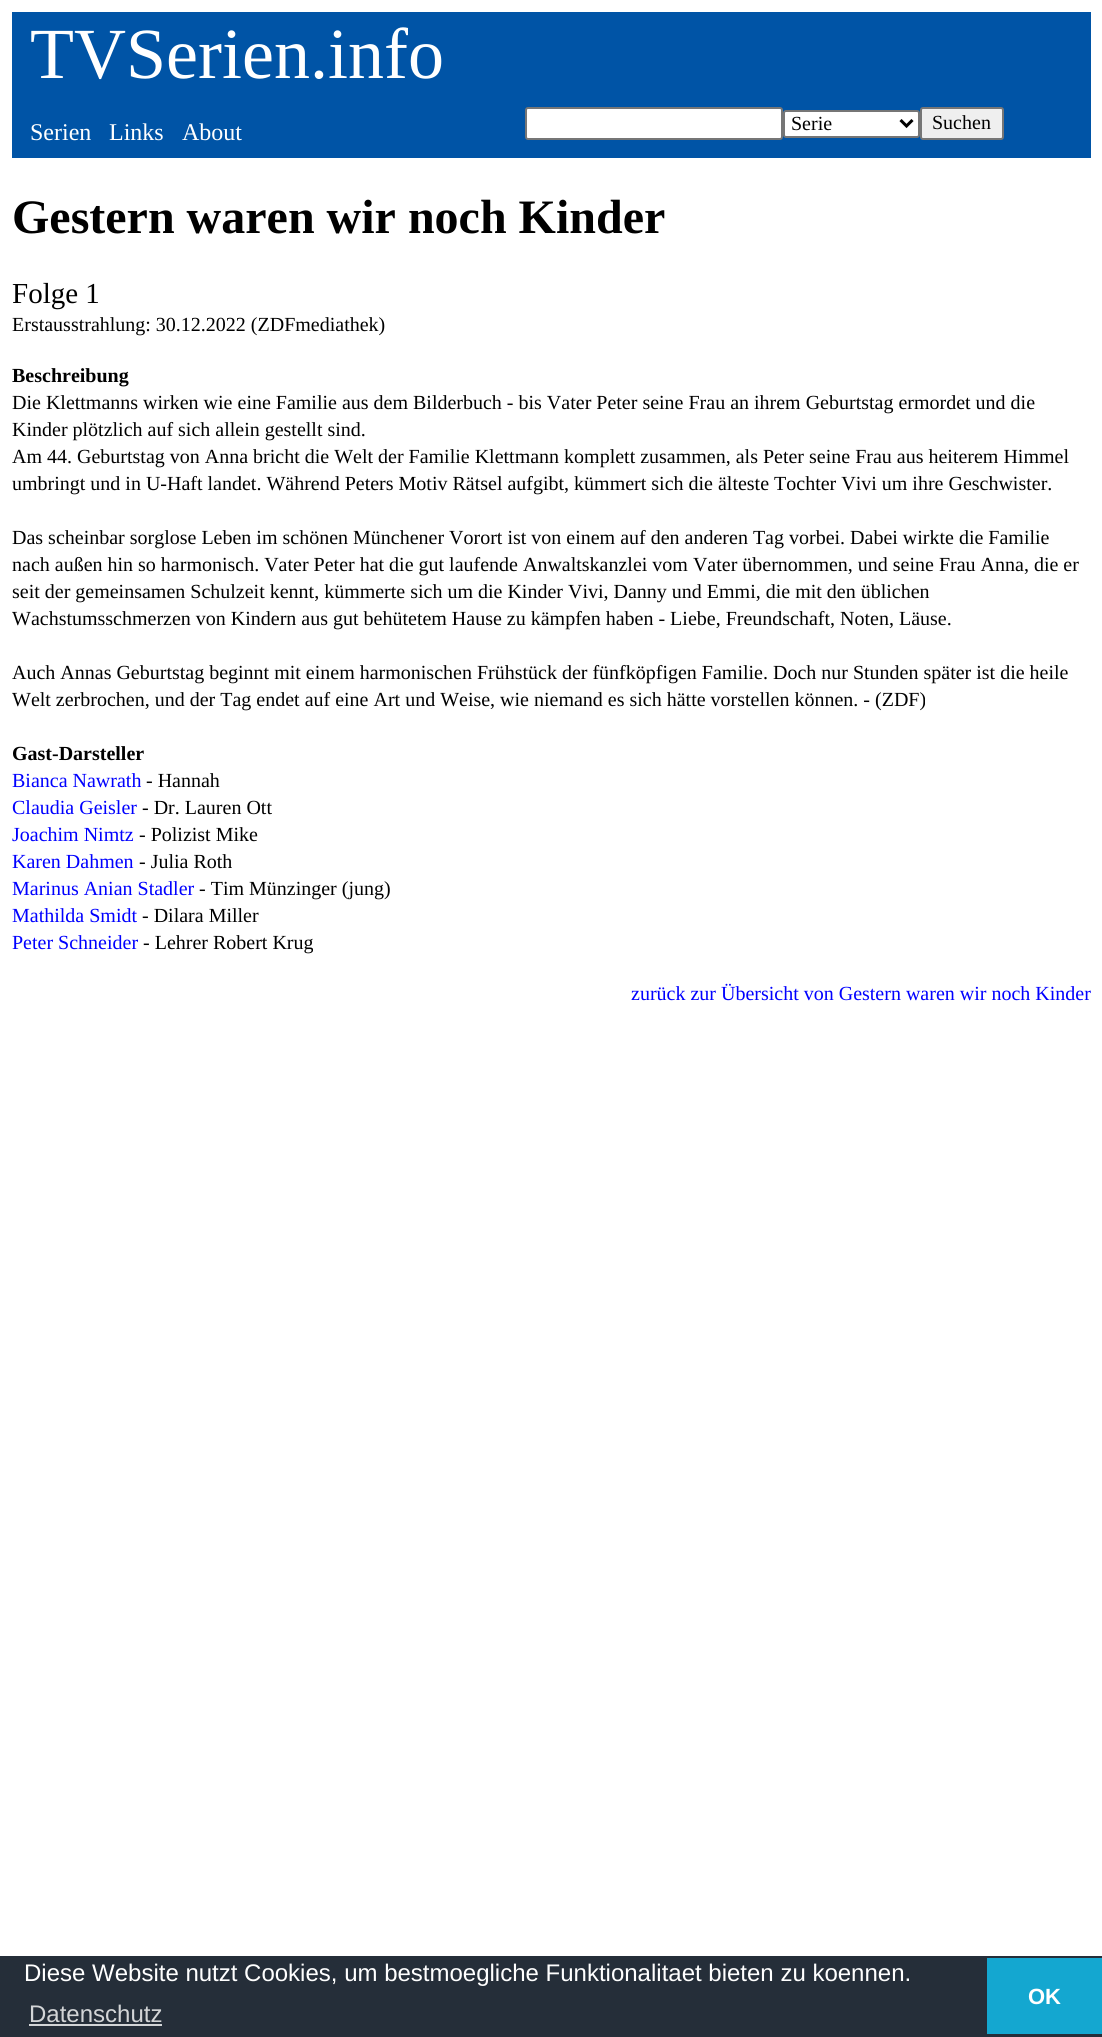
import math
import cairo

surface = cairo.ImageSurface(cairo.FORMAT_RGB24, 1102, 2037)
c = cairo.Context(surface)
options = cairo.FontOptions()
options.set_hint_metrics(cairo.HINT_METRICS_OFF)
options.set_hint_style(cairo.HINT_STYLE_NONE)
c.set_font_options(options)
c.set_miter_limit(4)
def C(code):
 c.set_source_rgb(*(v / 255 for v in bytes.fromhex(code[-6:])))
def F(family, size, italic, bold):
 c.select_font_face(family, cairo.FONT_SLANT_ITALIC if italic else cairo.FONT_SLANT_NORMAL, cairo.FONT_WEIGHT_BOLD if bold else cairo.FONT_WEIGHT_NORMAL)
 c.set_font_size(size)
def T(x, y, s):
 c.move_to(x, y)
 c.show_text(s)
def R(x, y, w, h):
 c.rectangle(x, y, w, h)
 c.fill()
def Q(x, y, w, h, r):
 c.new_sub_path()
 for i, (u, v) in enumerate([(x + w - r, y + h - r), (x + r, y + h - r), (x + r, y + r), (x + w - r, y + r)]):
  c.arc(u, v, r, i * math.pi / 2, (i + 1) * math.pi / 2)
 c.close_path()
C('ffffff')
c.paint()
C('0054a6')
R(12,12,1079,146)
F('Liberation Serif',72,0,0)
C('ffffff')
T(30,78,'TVSerien.info')
F('Liberation Serif',24,0,0)
T(30,140,'Serien')
T(109,140,'Links')
T(182,140,'About')
Q(526,108,256,31,2)
c.fill_preserve()
C('767676')
c.stroke()
C('ffffff')
Q(784,111,135,26,2)
c.fill_preserve()
C('767676')
c.stroke()
c.new_path()
c.move_to(900.5,120)
c.line_to(906.5,126)
c.line_to(912.5,120)
C('000000')
c.set_line_width(3)
c.stroke()
F('Liberation Serif',20,0,0)
T(791,130,'Serie')
C('efefef')
Q(921,108,82,31,2)
c.fill_preserve()
C('767676')
c.set_line_width(2)
c.stroke()
C('000000')
T(932,129,'Suchen')
F('Liberation Serif',48,0,1)
T(12,233,'Gestern waren wir noch Kinder')
F('Liberation Serif',29,0,0)
T(12,303,'Folge 1')
F('Liberation Serif',20,0,0)
T(12,331,'Erstausstrahlung: 30.12.2022 (ZDFmediathek)')
F('Liberation Serif',20,0,1)
T(12,382,'Beschreibung')
F('Liberation Serif',20,0,0)
T(12,409,'Die Klettmanns wirken wie eine Familie aus dem Bilderbuch - bis Vater Peter seine Frau an ihrem Geburtstag ermordet und die')
T(12,436,'Kinder plötzlich auf sich allein gestellt sind.')
T(12,463,'Am 44. Geburtstag von Anna bricht die Welt der Familie Klettmann komplett zusammen, als Peter seine Frau aus heiterem Himmel')
T(12,490,'umbringt und in U-Haft landet. Während Peters Motiv Rätsel aufgibt, kümmert sich die älteste Tochter Vivi um ihre Geschwister.')
T(12,544,'Das scheinbar sorglose Leben im schönen Münchener Vorort ist von einem auf den anderen Tag vorbei. Dabei wirkte die Familie')
T(12,571,'nach außen hin so harmonisch. Vater Peter hat die gut laufende Anwaltskanzlei vom Vater übernommen, und seine Frau Anna, die er')
T(12,598,'seit der gemeinsamen Schulzeit kennt, kümmerte sich um die Kinder Vivi, Danny und Emmi, die mit den üblichen')
T(12,625,'Wachstumsschmerzen von Kindern aus gut behütetem Hause zu kämpfen haben - Liebe, Freundschaft, Noten, Läuse.')
T(12,679,'Auch Annas Geburtstag beginnt mit einem harmonischen Frühstück der fünfköpfigen Familie. Doch nur Stunden später ist die heile')
T(12,706,'Welt zerbrochen, und der Tag endet auf eine Art und Weise, wie niemand es sich hätte vorstellen können. - (ZDF)')
F('Liberation Serif',20,0,1)
T(12,760,'Gast-Darsteller')
F('Liberation Serif',20,0,0)
C('0000ff')
T(12,787,'Bianca Nawrath')
C('000000')
T(146,787,'- Hannah')
C('0000ff')
T(12,814,'Claudia Geisler')
C('000000')
T(142,814,'- Dr. Lauren Ott')
C('0000ff')
T(12,841,'Joachim Nimtz')
C('000000')
T(139,841,'- Polizist Mike')
C('0000ff')
T(12,868,'Karen Dahmen')
C('000000')
T(139,868,'- Julia Roth')
C('0000ff')
T(12,895,'Marinus Anian Stadler')
C('000000')
T(199,895,'- Tim Münzinger (jung)')
C('0000ff')
T(12,922,'Mathilda Smidt')
C('000000')
T(142,922,'- Dilara Miller')
C('0000ff')
T(12,949,'Peter Schneider')
C('000000')
T(143,949,'- Lehrer Robert Krug')
C('0000ff')
T(631,1000,'zurück zur Übersicht von Gestern waren wir noch Kinder')
C('252e39')
R(0,1956,1102,81)
F('Liberation Sans',24,0,0)
C('ffffff')
T(24,1981,'Diese Website nutzt Cookies, um bestmoegliche Funktionalitaet bieten zu koennen.')
C('d3d5d7')
T(29,2022,'Datenschutz')
R(29,2024,133,2)
C('14a7d0')
R(987,1958,115,76)
F('Liberation Sans',22,0,1)
C('ffffff')
T(1028,2004,'OK')
surface.write_to_png('o.png')
